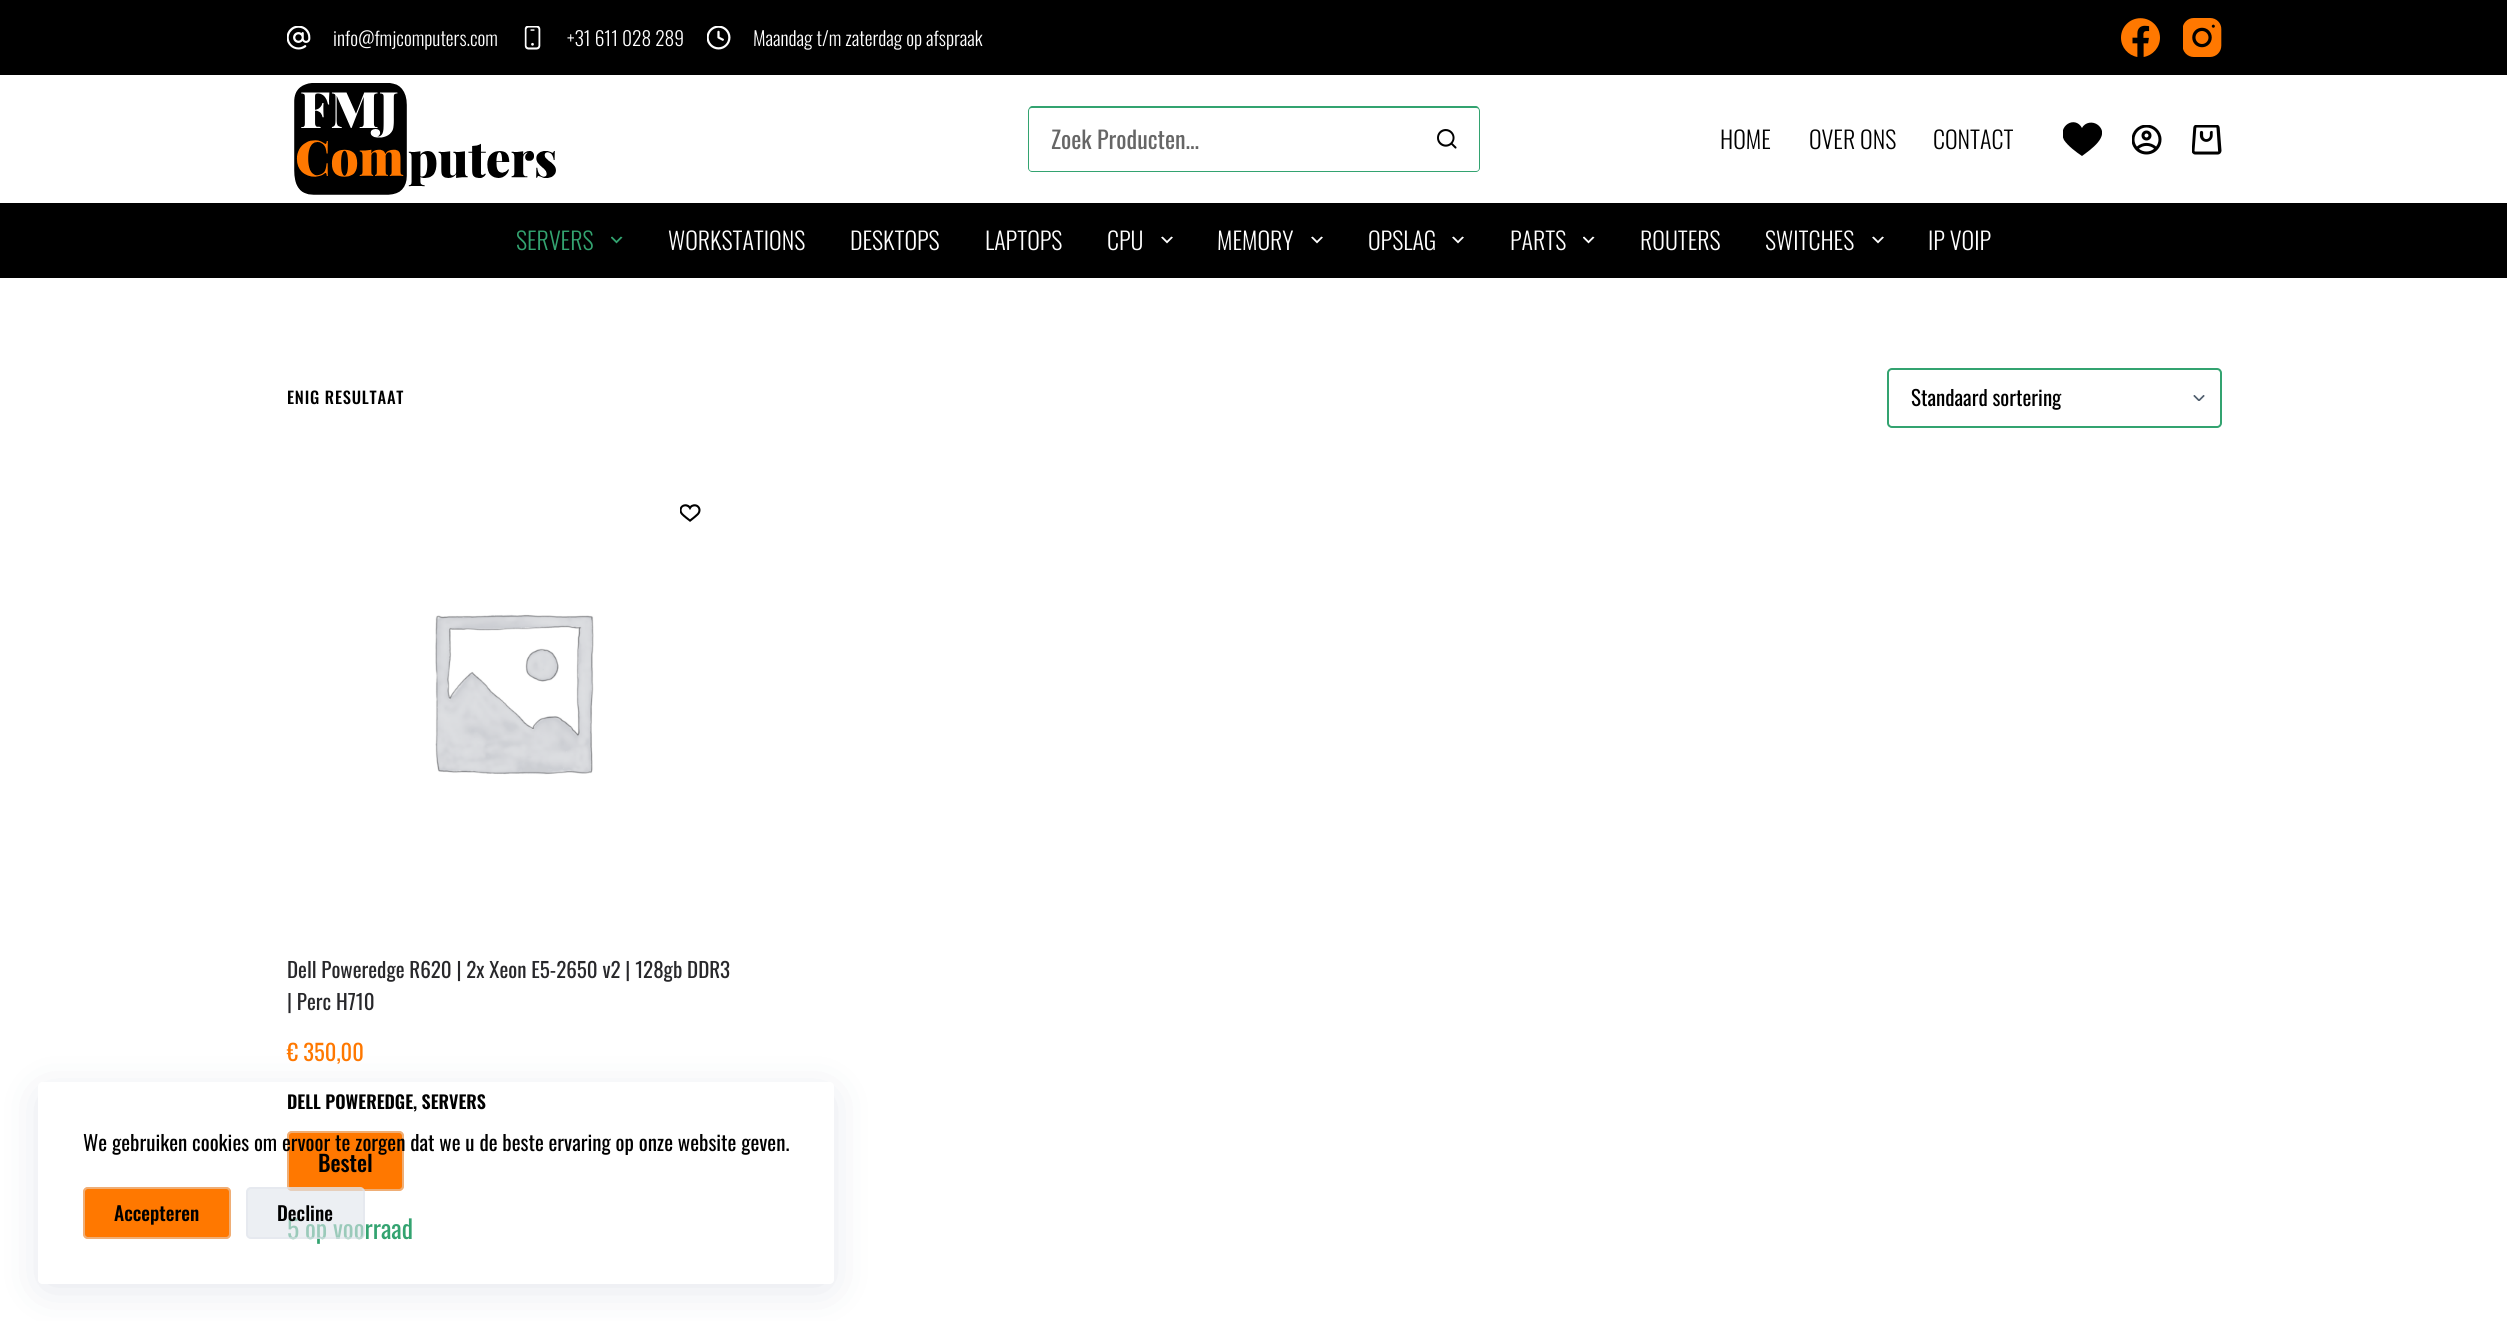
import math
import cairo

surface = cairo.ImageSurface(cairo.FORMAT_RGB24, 2507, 1321)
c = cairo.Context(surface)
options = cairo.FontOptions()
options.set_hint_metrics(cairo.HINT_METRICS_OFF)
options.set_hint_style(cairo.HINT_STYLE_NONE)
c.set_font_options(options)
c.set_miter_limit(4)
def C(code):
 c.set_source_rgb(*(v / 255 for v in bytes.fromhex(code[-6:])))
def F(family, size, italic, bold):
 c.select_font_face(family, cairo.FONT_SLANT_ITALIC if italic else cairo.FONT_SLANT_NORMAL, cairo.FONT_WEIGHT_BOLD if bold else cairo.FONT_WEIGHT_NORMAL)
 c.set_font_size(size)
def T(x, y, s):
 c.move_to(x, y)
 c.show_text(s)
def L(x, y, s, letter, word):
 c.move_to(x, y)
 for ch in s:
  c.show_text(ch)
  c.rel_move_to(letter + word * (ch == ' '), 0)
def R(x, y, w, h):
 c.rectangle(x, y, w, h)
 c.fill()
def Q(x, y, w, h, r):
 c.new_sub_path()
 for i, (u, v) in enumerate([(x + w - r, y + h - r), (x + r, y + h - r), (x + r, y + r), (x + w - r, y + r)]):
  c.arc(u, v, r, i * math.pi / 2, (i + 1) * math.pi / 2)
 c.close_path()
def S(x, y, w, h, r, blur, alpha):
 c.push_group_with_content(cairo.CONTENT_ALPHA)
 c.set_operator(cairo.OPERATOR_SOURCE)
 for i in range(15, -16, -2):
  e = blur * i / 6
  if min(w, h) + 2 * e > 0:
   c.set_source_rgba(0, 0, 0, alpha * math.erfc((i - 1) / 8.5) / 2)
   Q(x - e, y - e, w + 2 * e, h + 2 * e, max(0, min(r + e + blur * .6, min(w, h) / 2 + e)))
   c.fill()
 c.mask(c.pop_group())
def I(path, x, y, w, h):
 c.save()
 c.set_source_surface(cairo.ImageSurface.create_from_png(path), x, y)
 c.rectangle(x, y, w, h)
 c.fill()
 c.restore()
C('ffffff')
c.paint()
C('000000')
R(0,0,2507,75)
I('1.png',287,26,24,24)
F('Oswald Light',19.5,0,0)
C('ffffff')
T(333,46,'info@fmjcomputers.com')
I('2.png',524,26,17,24)
T(567,46,'+31 611 028 289')
I('3.png',707,26,24,24)
T(753,46,'Maandag t/m zaterdag op afspraak')
I('4.png',2121,18,39,39)
I('5.png',2183,18,39,39)
I('6.png',294,83,262,112)
C('33a370')
c.set_fill_rule(cairo.FILL_RULE_EVEN_ODD)
c.new_path()
c.move_to(1032,106)
c.line_to(1414,106)
c.line_to(1414,172)
c.line_to(1032,172)
c.curve_to(1030,172,1028,170,1028,168)
c.line_to(1028,111)
c.curve_to(1028,109,1030,106,1032,106)
c.close_path()
c.move_to(1032,108)
c.line_to(1414,108)
c.line_to(1414,171)
c.line_to(1032,171)
c.curve_to(1030,171,1029,170,1029,168)
c.line_to(1029,111)
c.curve_to(1029,109,1030,108,1032,108)
c.close_path()
c.fill()
F('Oswald',24,0,0)
C('666666')
T(1051,149,'Zoek Producten...')
C('33a370')
c.new_path()
c.move_to(1414,106)
c.line_to(1476,106)
c.curve_to(1478,106,1480,109,1480,111)
c.line_to(1480,168)
c.curve_to(1480,170,1478,172,1476,172)
c.line_to(1414,172)
c.close_path()
c.move_to(1414,108)
c.line_to(1476,108)
c.curve_to(1478,108,1479,109,1479,111)
c.line_to(1479,168)
c.curve_to(1479,170,1478,171,1476,171)
c.line_to(1414,171)
c.close_path()
c.fill()
I('7.png',1437,129,20,20)
F('Oswald Light',24,0,0)
C('000000')
T(1720,149,'HOME')
T(1809,149,'OVER ONS')
T(1933,149,'CONTACT')
c.save()
c.set_fill_rule(cairo.FILL_RULE_WINDING)
c.rectangle(2063,120,39,39)
c.clip()
c.new_path()
c.move_to(2098,125)
c.curve_to(2093,121,2085,122,2082,128)
c.curve_to(2075,115,2057,126,2064,140)
c.curve_to(2068,146,2076,152,2082,156)
c.curve_to(2090,150,2111,136,2098,125)
c.close_path()
c.fill()
c.restore()
I('8.png',2132,125,30,30)
I('9.png',2192,125,30,30)
R(0,203,2507,75)
C('33a370')
T(516,250,'SERVERS')
I('10.png',611,236,12,8)
C('ffffff')
T(668,250,'WORKSTATIONS')
T(850,250,'DESKTOPS')
T(985,250,'LAPTOPS')
T(1107,250,'CPU')
I('11.png',1161,236,12,8)
T(1217,250,'MEMORY')
I('11.png',1311,236,12,8)
T(1368,250,'OPSLAG')
I('11.png',1452,236,12,8)
T(1510,250,'PARTS')
I('12.png',1583,236,12,8)
T(1640,250,'ROUTERS')
T(1765,250,'SWITCHES')
I('11.png',1872,236,12,8)
T(1928,250,'IP VOIP')
F('Oswald Medium',16.5,0,0)
C('000000')
L(287,404,'ENIG RESULTAAT',.8,0)
I('13.png',2193,395,12,6)
Q(1888,369,333,58,4)
C('33a370')
c.stroke()
F('Oswald',21,0,0)
C('000000')
T(1911,406,'Standaard sortering')
I('14.png',680,504,21,18)
I('15.png',435,614,159,161)
C('28282b')
T(287,978,'Dell Poweredge R620 | 2x Xeon E5-2650 v2 | 128gb DDR3')
T(287,1010,'| Perc H710')
F('Oswald',22.5,0,0)
C('ff7800')
T(287,1061,'€ 350,00')
F('Oswald SemiBold',18,0,0)
C('000000')
T(287,1109,'DELL POWEREDGE, SERVERS')
C('ff7800')
Q(287,1131,117,60,5)
c.fill()
Q(288,1132,115,58,4)
c.set_source_rgba(0.878,0.898,0.922,0.5)
c.stroke()
F('Oswald Medium',22.5,0,0)
C('000000')
T(318,1172,'Bestel')
F('Oswald',25.5,0,0)
C('33a370')
T(287,1239,'5 op voorraad')
c.save()
c.new_path()
c.move_to(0,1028)
c.line_to(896,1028)
c.line_to(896,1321)
c.line_to(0,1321)
c.close_path()
c.move_to(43,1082)
c.line_to(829,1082)
c.curve_to(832,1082,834,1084,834,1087)
c.line_to(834,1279)
c.curve_to(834,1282,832,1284,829,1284)
c.line_to(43,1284)
c.curve_to(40,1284,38,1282,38,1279)
c.line_to(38,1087)
c.curve_to(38,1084,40,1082,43,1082)
c.close_path()
c.clip()
C('223865')
S(45,1097,782,187,0,22.5,.15)
c.restore()
F('Oswald',21,0,0)
C('000000')
T(83,1151,'We gebruiken cookies om ervoor te zorgen dat we u de beste ervaring op onze website geven.')
C('ff7800')
Q(83,1187,148,52,5)
c.fill()
Q(84,1188,146,50,4)
c.set_source_rgba(0.878,0.898,0.922,0.5)
c.stroke()
F('Oswald Medium',19.5,0,0)
C('000000')
T(114,1221,'Accepteren')
c.set_source_rgba(0.878,0.898,0.922,0.6)
Q(246,1187,119,52,5)
c.fill()
Q(247,1188,117,50,4)
c.set_source_rgba(0.878,0.898,0.922,0.5)
c.stroke()
C('000000')
T(277,1221,'Decline')
surface.write_to_png('o.png')
